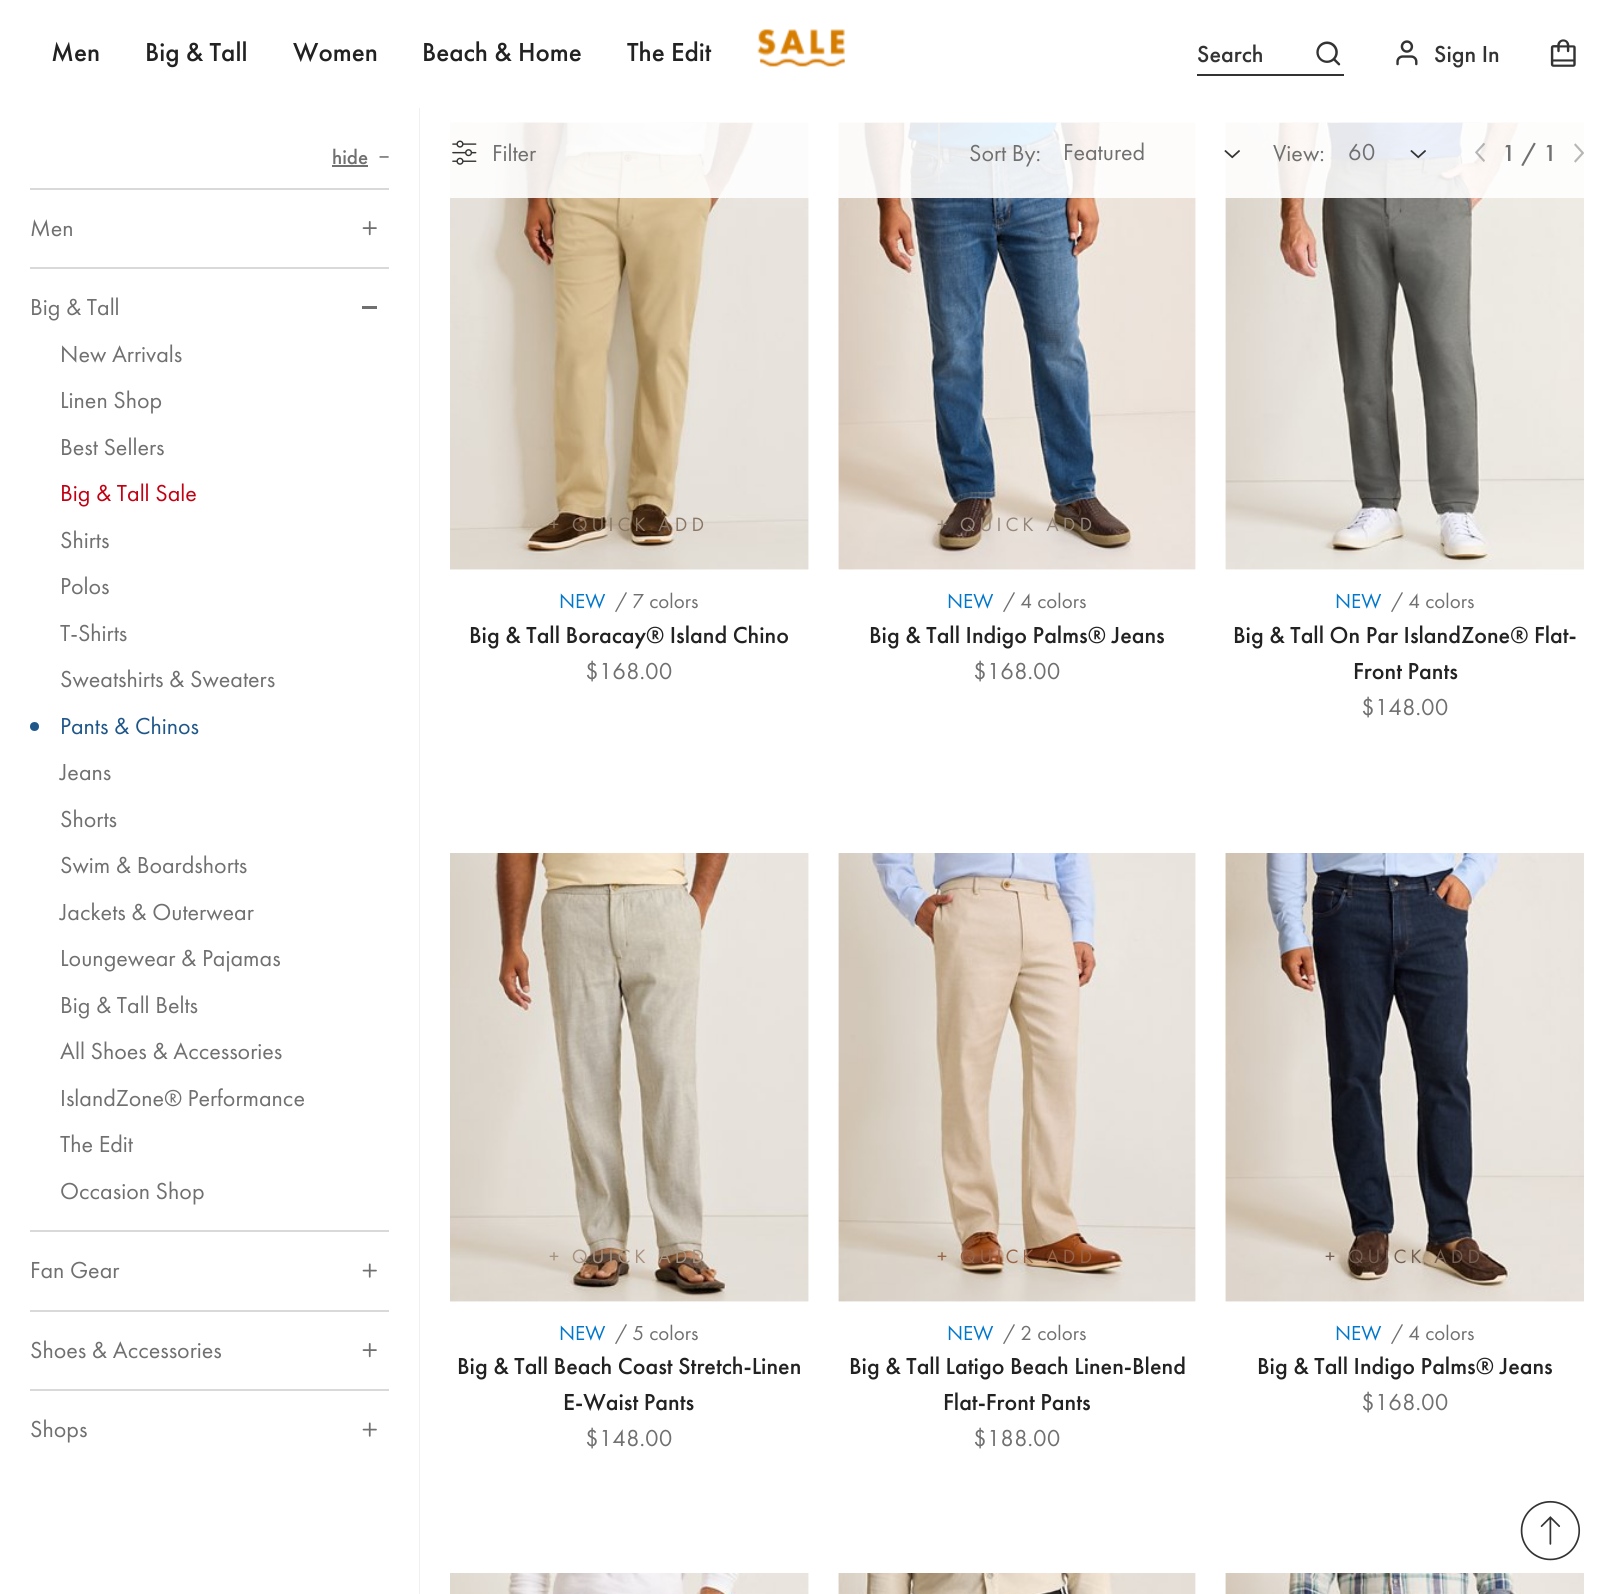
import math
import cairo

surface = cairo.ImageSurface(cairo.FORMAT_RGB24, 1614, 1594)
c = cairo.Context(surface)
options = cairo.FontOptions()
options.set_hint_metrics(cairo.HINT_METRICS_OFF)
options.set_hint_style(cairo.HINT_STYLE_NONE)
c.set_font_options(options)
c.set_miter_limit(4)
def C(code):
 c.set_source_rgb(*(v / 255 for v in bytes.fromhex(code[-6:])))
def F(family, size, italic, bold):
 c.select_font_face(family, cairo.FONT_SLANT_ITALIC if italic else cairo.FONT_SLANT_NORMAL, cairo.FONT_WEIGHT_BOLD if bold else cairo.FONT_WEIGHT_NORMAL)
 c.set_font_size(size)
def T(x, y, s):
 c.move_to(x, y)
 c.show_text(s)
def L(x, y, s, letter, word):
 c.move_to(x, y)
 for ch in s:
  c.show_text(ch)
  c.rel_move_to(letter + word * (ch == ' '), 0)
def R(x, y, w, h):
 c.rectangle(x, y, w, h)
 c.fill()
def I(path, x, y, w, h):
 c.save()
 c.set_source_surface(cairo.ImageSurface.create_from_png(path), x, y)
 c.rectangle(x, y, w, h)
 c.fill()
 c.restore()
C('ffffff')
c.paint()
F('Futura PT Medium',27,0,0)
C('222222')
T(51,61,'Men')
T(145,61,'Big & Tall')
T(293,61,'Women')
T(422,61,'Beach & Home')
T(627,61,'The Edit')
I('1.png',757,29,88,38)
C('333333')
R(1197,74,147,2)
F('Futura PT Medium',24,0,0)
T(1197,62,'Search')
I('2.png',1316,41,25,25)
I('3.png',1396,40,22,26)
T(1434,62,'Sign In')
I('4.png',1550,39,26,28)
C('f0f0f0')
R(419,108,1,1486)
F('Futura PT Medium',21,0,0)
C('707070')
T(332,164,'hide')
R(332,165,36,2)
F('Lato Medium',21,0,0)
T(378,164,'−')
C('d9d9d9')
R(30,188,359,2)
F('Futura PT',24,0,0)
C('707070')
T(30,236,'Men')
I('5.png',362,221,15,15)
C('d9d9d9')
R(30,267,359,2)
C('707070')
T(30,315,'Big & Tall')
R(362,306,15,3)
T(60,362,'New Arrivals')
T(60,408,'Linen Shop')
T(60,455,'Best Sellers')
C('c10012')
T(60,501,'Big & Tall Sale')
C('707070')
T(60,548,'Shirts')
T(60,594,'Polos')
T(60,641,'T-Shirts')
T(60,687,'Sweatshirts & Sweaters')
C('1f5689')
c.new_path()
c.arc(34.5,726.5,4.5,0,2 * math.pi)
c.fill()
T(60,734,'Pants & Chinos')
C('707070')
T(60,780,'Jeans')
T(60,827,'Shorts')
T(60,873,'Swim & Boardshorts')
T(60,920,'Jackets & Outerwear')
T(60,966,'Loungewear & Pajamas')
T(60,1013,'Big & Tall Belts')
T(60,1059,'All Shoes & Accessories')
T(60,1106,'IslandZone® Performance')
T(60,1152,'The Edit')
T(60,1199,'Occasion Shop')
C('d9d9d9')
R(30,1230,359,2)
C('707070')
T(30,1278,'Fan Gear')
I('6.png',362,1263,15,15)
C('d9d9d9')
R(30,1310,359,2)
C('707070')
T(30,1358,'Shoes & Accessories')
I('5.png',362,1343,15,15)
C('d9d9d9')
R(30,1389,359,2)
C('707070')
T(30,1437,'Shops')
I('6.png',362,1422,15,15)
I('12.png',450,122,359,448)
I('13.png',450,122,359,448)
I('14.png',838,122,358,448)
I('15.png',838,122,358,448)
I('16.png',1225,122,359,448)
I('17.png',1225,122,359,448)
c.set_source_rgba(1,1,1,0.9)
R(450,122,1134,76)
I('7.png',452,140,25,25)
C('707070')
T(492,161,'Filter')
C('f0f0f0')
R(938,123,2,60)
C('707070')
T(969,161,'Sort By:')
T(1063,160,'Featured')
I('8.png',1224,150,16,9)
T(1273,161,'View:')
T(1348,160,'60')
I('9.png',1410,150,16,9)
I('10.png',1475,142,10,20)
F('Futura PT Medium',24,0,0)
T(1502,161,'1 / 1')
I('11.png',1574,143,10,20)
F('Futura PT',20,0,0)
C('897664')
L(549,531,'+ QUICK ADD',4,0)
F('Futura PT',21,0,0)
C('0077cc')
T(559,608,'NEW')
C('707070')
T(615,608,'/ 7 colors')
F('Futura PT Medium',24,0,0)
C('222222')
T(469,643,'Big & Tall Boracay® Island Chino')
F('Futura PT',24,0,0)
C('707070')
T(585,679,'$168.00')
F('Futura PT',20,0,0)
C('95877b')
L(937,531,'+ QUICK ADD',4,0)
F('Futura PT',21,0,0)
C('0077cc')
T(947,608,'NEW')
C('707070')
T(1003,608,'/ 4 colors')
F('Futura PT Medium',24,0,0)
C('222222')
T(869,643,'Big & Tall Indigo Palms® Jeans')
F('Futura PT',24,0,0)
C('707070')
T(973,679,'$168.00')
F('Futura PT',21,0,0)
C('0077cc')
T(1335,608,'NEW')
C('707070')
T(1391,608,'/ 4 colors')
F('Futura PT Medium',24,0,0)
C('222222')
T(1233,643,'Big & Tall On Par IslandZone® Flat-')
T(1353,679,'Front Pants')
F('Futura PT',24,0,0)
C('707070')
T(1361,715,'$148.00')
I('18.png',450,853,359,449)
I('19.png',450,853,359,449)
F('Futura PT',20,0,0)
C('a69280')
L(549,1263,'+ QUICK ADD',4,0)
F('Futura PT',21,0,0)
C('0077cc')
T(559,1340,'NEW')
C('707070')
T(615,1340,'/ 5 colors')
F('Futura PT Medium',24,0,0)
C('222222')
T(457,1374,'Big & Tall Beach Coast Stretch-Linen')
T(563,1410,'E-Waist Pants')
F('Futura PT',24,0,0)
C('707070')
T(585,1446,'$148.00')
I('20.png',838,853,358,449)
I('21.png',838,853,358,449)
F('Futura PT',20,0,0)
C('986346')
L(937,1263,'+ QUICK ADD',4,0)
F('Futura PT',21,0,0)
C('0077cc')
T(947,1340,'NEW')
C('707070')
T(1003,1340,'/ 2 colors')
F('Futura PT Medium',24,0,0)
C('222222')
T(849,1374,'Big & Tall Latigo Beach Linen-Blend')
T(943,1410,'Flat-Front Pants')
F('Futura PT',24,0,0)
C('707070')
T(973,1446,'$188.00')
I('22.png',1225,853,359,449)
I('23.png',1225,853,359,449)
F('Futura PT',20,0,0)
C('735e51')
L(1325,1263,'+ QUICK ADD',4,0)
F('Futura PT',21,0,0)
C('0077cc')
T(1335,1340,'NEW')
C('707070')
T(1391,1340,'/ 4 colors')
F('Futura PT Medium',24,0,0)
C('222222')
T(1257,1374,'Big & Tall Indigo Palms® Jeans')
F('Futura PT',24,0,0)
C('707070')
T(1361,1410,'$168.00')
I('25.png',808,1573,1,21)
I('24.png',450,1573,359,21)
I('26.png',838,1573,358,21)
I('27.png',838,1573,358,21)
I('28.png',1225,1573,359,21)
I('29.png',1225,1573,298,21)
I('30.png',1520,1500,61,61)
surface.write_to_png('o.png')
